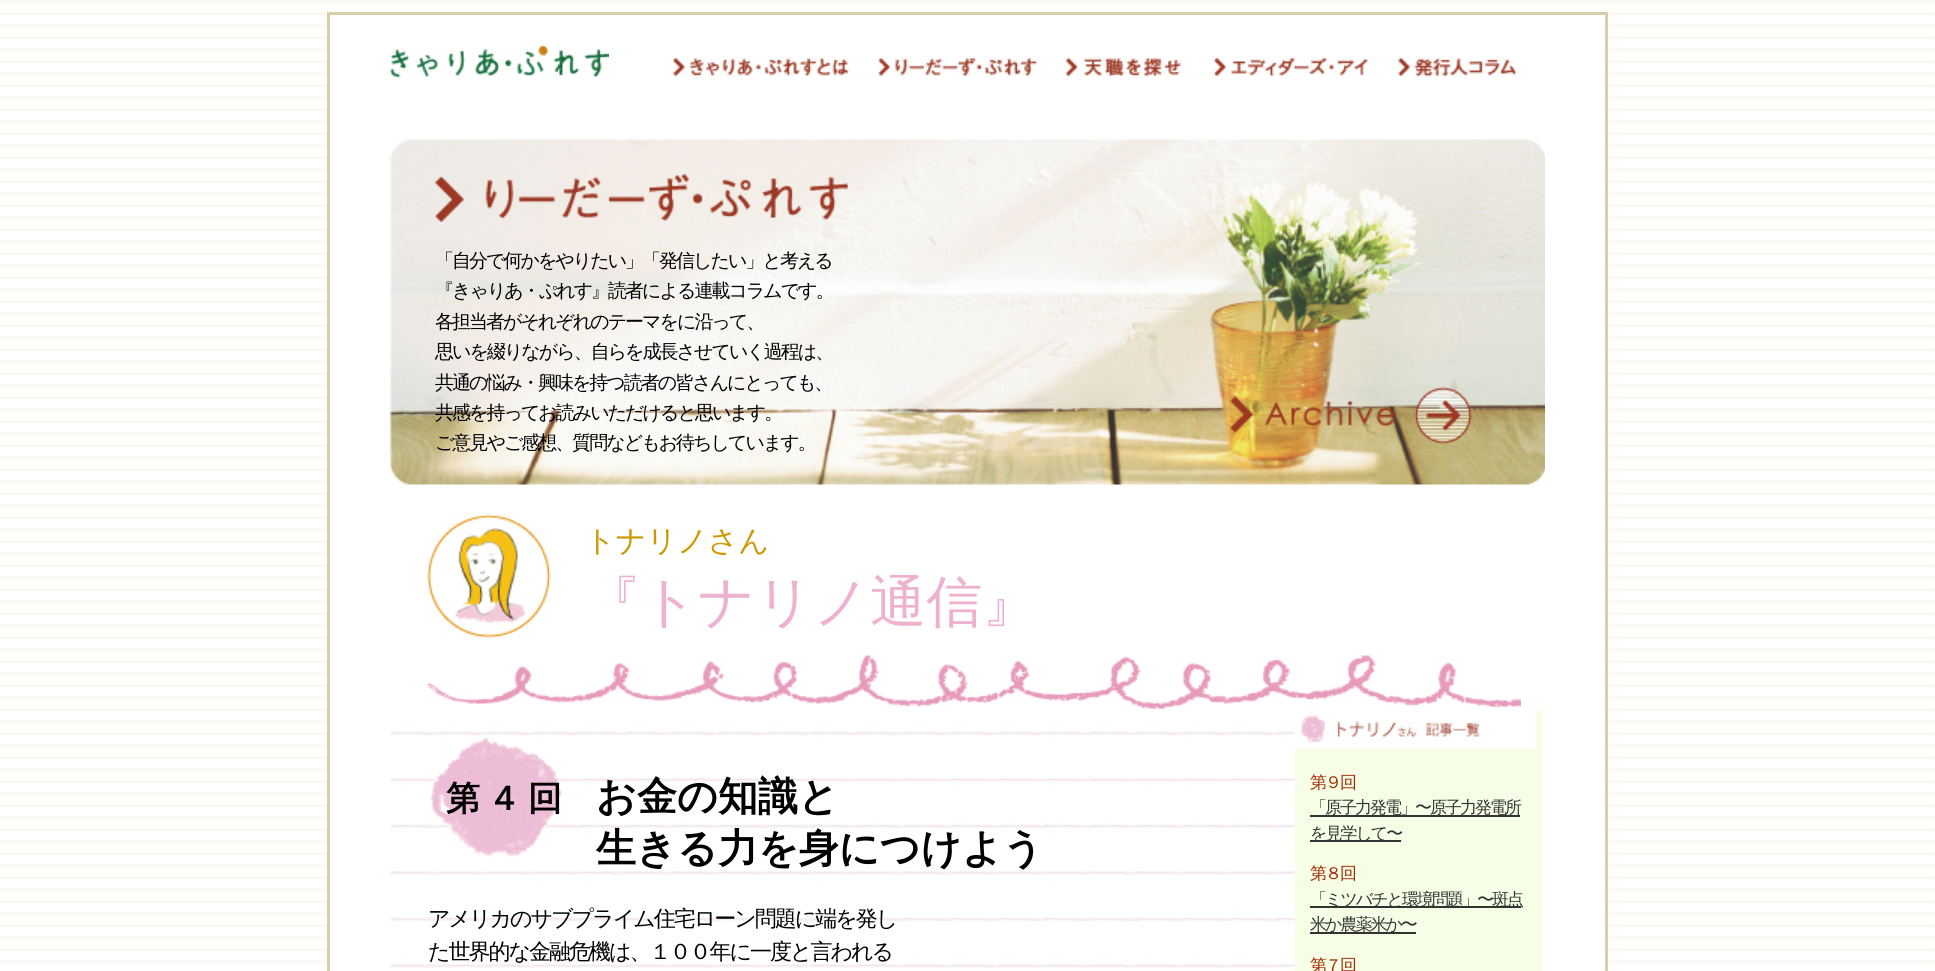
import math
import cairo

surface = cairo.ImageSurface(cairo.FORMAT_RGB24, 1935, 971)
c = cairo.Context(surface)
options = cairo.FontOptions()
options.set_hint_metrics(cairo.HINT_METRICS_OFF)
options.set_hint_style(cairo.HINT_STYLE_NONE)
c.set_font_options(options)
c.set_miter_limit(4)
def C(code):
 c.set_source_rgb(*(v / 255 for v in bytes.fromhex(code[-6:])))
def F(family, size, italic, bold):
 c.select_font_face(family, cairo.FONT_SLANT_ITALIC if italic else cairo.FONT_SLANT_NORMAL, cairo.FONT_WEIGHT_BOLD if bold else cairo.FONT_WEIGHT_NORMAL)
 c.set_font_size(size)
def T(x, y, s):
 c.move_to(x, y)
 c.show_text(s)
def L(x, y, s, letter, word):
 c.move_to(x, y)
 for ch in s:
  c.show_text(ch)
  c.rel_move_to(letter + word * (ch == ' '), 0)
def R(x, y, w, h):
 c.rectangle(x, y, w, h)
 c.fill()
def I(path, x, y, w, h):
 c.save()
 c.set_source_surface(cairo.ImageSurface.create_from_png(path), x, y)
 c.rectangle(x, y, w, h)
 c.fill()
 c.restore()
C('ffffff')
c.paint()
I('1.png',0,0,1935,963)
C('ffffff')
R(330,15,1275,948)
c.rectangle(328.5,13.5,1278,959)
C('d8cea9')
c.set_line_width(3)
c.stroke()
I('2.png',390,45,219,33)
I('3.png',673,57,176,20)
I('4.png',877,57,160,20)
I('5.png',1065,57,116,20)
I('6.png',1213,57,156,20)
I('7.png',1398,57,119,20)
I('8.png',390,139,1155,346)
I('9.png',435,174,413,48)
F('WenQuanYi Zen Hei Medium',19,0,0)
C('000000')
L(435,267,'「自分で何かをやりたい」「発信したい」と考える',-2,0)
L(435,297,'『きゃりあ・ぷれす』読者による連載コラムです。',-2,0)
L(435,328,'各担当者がそれぞれのテーマをに沿って、',-2,0)
L(435,358,'思いを綴りながら、自らを成長させていく過程は、',-2,0)
L(435,389,'共通の悩み・興味を持つ読者の皆さんにとっても、',-2,0)
L(435,419,'共感を持ってお読みいただけると思います。',-2,0)
L(435,449,'ご意見やご感想、質問などもお待ちしています。',-2,0)
I('10.png',1230,387,242,58)
I('11.png',427,514,124,124)
F('WenQuanYi Zen Hei Medium',30,0,0)
C('cc9900')
T(585,551,'トナリノさん')
F('WenQuanYi Zen Hei Medium',56,0,0)
C('eeb1cf')
T(585,621,'『トナリノ通信』')
I('12.png',427,655,1094,55)
I('13.png',390,709,905,259)
I('14.png',430,737,132,120)
F('WenQuanYi Zen Hei',34,0,1)
C('000000')
L(446,810,'第４回',7,0)
F('WenQuanYi Zen Hei',40,0,1)
T(596,810,'お金の知識と')
T(596,862,'生きる力を身につけよう')
F('WenQuanYi Zen Hei Medium',22,0,0)
L(428,926,'アメリカのサブプライム住宅ローン問題に端を発し',-2,0)
L(428,959,'た世界的な金融危機は、１００年に一度と言われる',-2,0)
C('f6ffe6')
R(1295,710,247,261)
I('15.png',1294,710,242,39)
F('WenQuanYi Zen Hei Medium',17,0,0)
C('a32800')
L(1310,788,'第９回',-2,0)
C('333333')
R(1310,815,210,2)
L(1310,813,'「原子力発電」〜原子力発電所',-2,0)
R(1310,840,91,2)
L(1310,839,'を見学して〜',-2,0)
C('a32800')
L(1310,879,'第８回',-2,0)
C('333333')
R(1310,906,211,2)
L(1310,905,'「ミツバチと環境問題」〜斑点',-2,0)
R(1310,932,106,2)
L(1310,930,'米か農薬米か〜',-2,0)
C('a32800')
L(1310,971,'第７回',-2,0)
surface.write_to_png('o.png')
